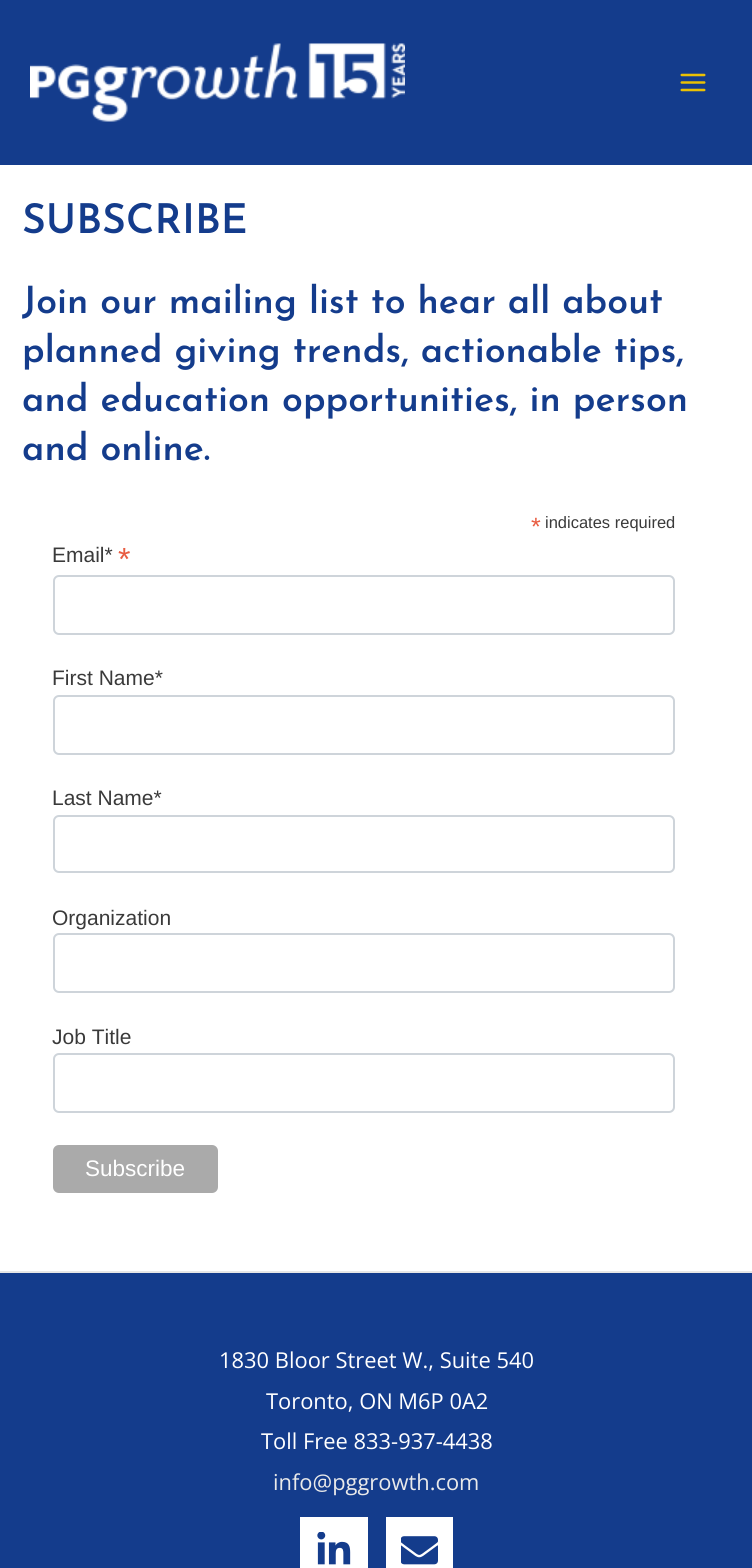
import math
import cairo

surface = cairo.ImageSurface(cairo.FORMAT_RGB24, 752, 1568)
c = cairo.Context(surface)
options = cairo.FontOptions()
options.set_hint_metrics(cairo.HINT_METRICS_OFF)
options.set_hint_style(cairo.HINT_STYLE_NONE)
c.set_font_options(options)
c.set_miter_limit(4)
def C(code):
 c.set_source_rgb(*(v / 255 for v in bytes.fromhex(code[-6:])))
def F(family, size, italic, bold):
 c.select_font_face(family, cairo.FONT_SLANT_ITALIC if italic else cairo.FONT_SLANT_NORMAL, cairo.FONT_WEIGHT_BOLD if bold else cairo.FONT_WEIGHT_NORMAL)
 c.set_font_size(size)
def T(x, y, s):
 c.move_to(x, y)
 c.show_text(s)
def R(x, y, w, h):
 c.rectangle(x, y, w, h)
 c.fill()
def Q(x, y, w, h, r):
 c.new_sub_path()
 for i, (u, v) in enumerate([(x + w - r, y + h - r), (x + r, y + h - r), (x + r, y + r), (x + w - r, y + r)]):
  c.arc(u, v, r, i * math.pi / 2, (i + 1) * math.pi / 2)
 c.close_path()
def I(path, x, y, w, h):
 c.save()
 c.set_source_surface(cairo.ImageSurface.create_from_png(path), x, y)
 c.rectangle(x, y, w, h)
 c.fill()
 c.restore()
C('ffffff')
c.paint()
C('143c8c')
R(0,0,752,165)
I('1.png',30,43,375,79)
I('2.png',680,73,26,19)
F('Josefin Sans Thin',41,0,0)
T(22,233,'SUBSCRIBE')
F('Josefin Sans Thin',37.5,0,0)
T(22,313,'Join our mailing list to hear all about')
T(22,362,'planned giving trends, actionable tips,')
T(22,411,'and education opportunities, in person')
T(22,460,'and online.')
F('Liberation Sans',25,0,0)
C('e85c41')
T(531,535,'*')
F('Liberation Sans',16.5,0,0)
C('3a3a3a')
T(545,528,'indicates required')
F('Liberation Sans',21,0,0)
T(52,562,'Email*')
F('Liberation Sans',32,0,0)
C('e85c41')
T(118,570,'*')
Q(54,576,620,58,5)
C('ced4da')
c.stroke()
F('Liberation Sans',21,0,0)
C('3a3a3a')
T(52,685,'First Name*')
Q(54,696,620,58,5)
C('ced4da')
c.stroke()
C('3a3a3a')
T(52,805,'Last Name*')
Q(54,816,620,56,5)
C('ced4da')
c.stroke()
C('3a3a3a')
T(52,925,'Organization')
Q(54,934,620,58,5)
C('ced4da')
c.stroke()
C('3a3a3a')
T(52,1044,'Job Title')
Q(54,1054,620,58,5)
C('ced4da')
c.stroke()
C('aaaaaa')
Q(53,1145,165,48,6)
c.fill()
F('Liberation Sans',22.5,0,0)
C('ffffff')
T(85,1176,'Subscribe')
C('143c8c')
R(0,1273,752,295)
C('e6e6e6')
R(0,1271,752,2)
F('Open Sans',21.9,0,0)
C('ffffff')
T(219,1368,'1830 Bloor Street W., Suite 540')
T(266,1409,'Toronto, ON M6P 0A2')
T(261,1449,'Toll Free 833-937-4438')
C('eaeaea')
T(273,1490,'info@pggrowth.com')
C('ffffff')
R(300,1517,68,51)
I('3.png',317,1532,34,33)
R(386,1517,67,51)
I('4.png',401,1536,37,29)
surface.write_to_png('o.png')
